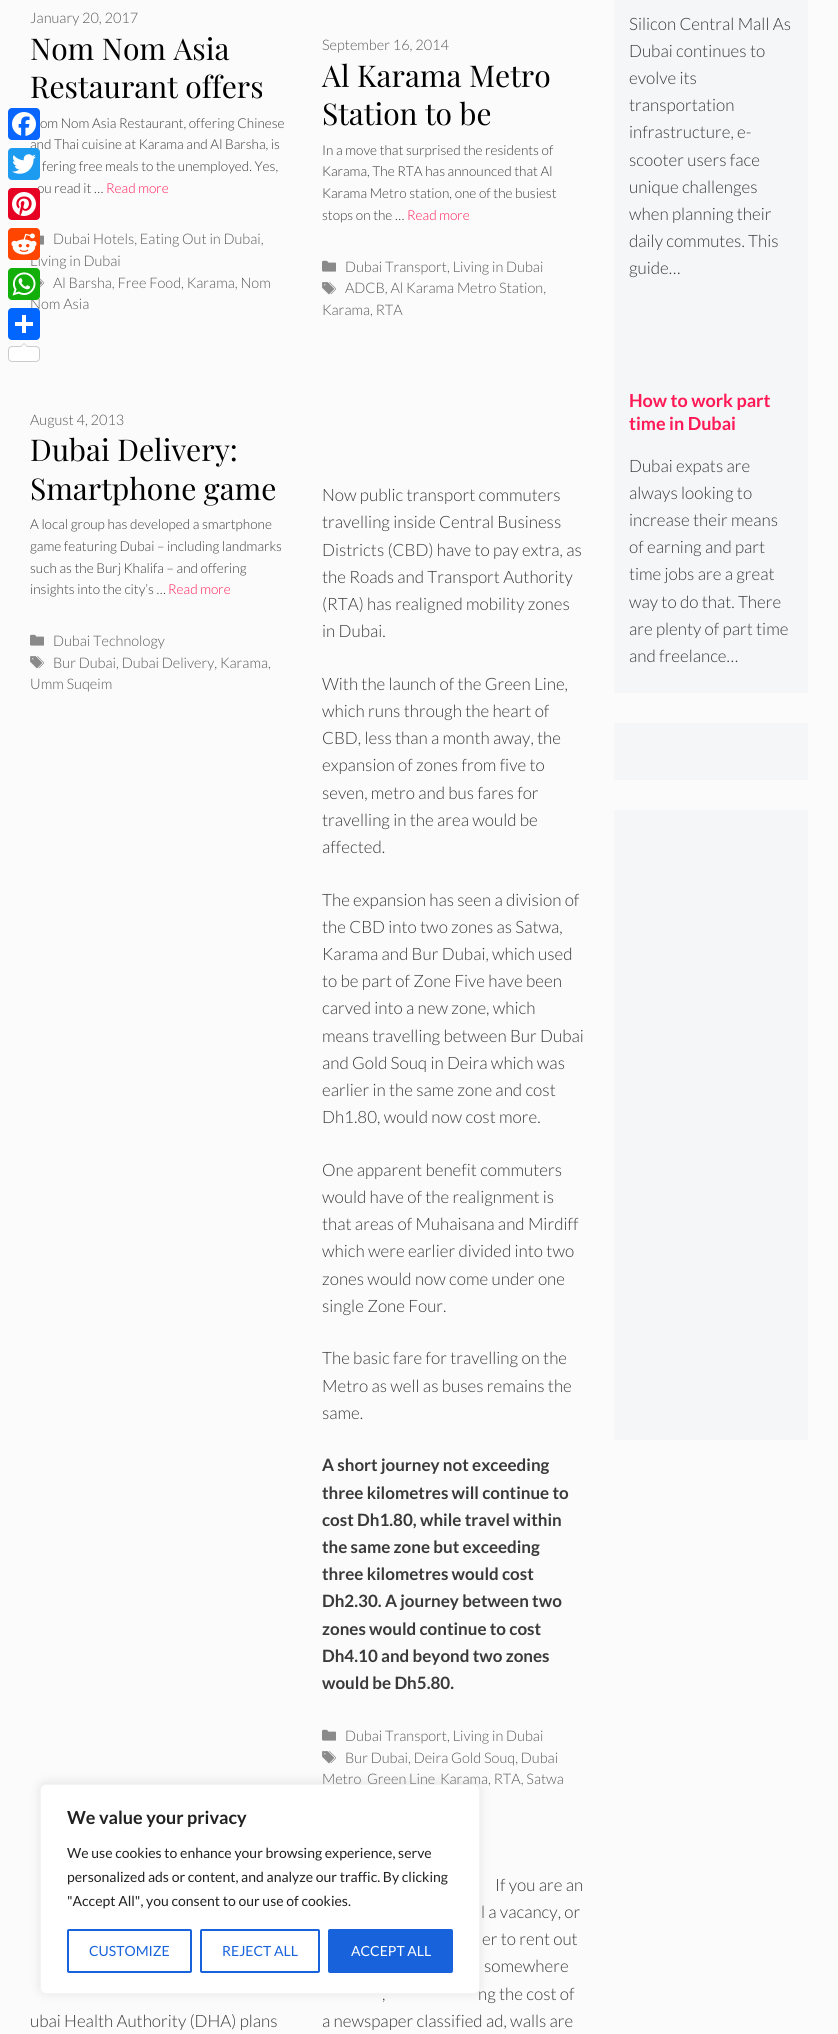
import math
import cairo

surface = cairo.ImageSurface(cairo.FORMAT_RGB24, 838, 2034)
c = cairo.Context(surface)
options = cairo.FontOptions()
options.set_hint_metrics(cairo.HINT_METRICS_OFF)
options.set_hint_style(cairo.HINT_STYLE_NONE)
c.set_font_options(options)
c.set_miter_limit(4)
def C(code):
 c.set_source_rgb(*(v / 255 for v in bytes.fromhex(code[-6:])))
def F(family, size, italic, bold):
 c.select_font_face(family, cairo.FONT_SLANT_ITALIC if italic else cairo.FONT_SLANT_NORMAL, cairo.FONT_WEIGHT_BOLD if bold else cairo.FONT_WEIGHT_NORMAL)
 c.set_font_size(size)
def T(x, y, s):
 c.move_to(x, y)
 c.show_text(s)
def R(x, y, w, h):
 c.rectangle(x, y, w, h)
 c.fill()
def Q(x, y, w, h, r):
 c.new_sub_path()
 for i, (u, v) in enumerate([(x + w - r, y + h - r), (x + r, y + h - r), (x + r, y + r), (x + w - r, y + r)]):
  c.arc(u, v, r, i * math.pi / 2, (i + 1) * math.pi / 2)
 c.close_path()
def S(x, y, w, h, r, blur, alpha):
 c.push_group_with_content(cairo.CONTENT_ALPHA)
 c.set_operator(cairo.OPERATOR_SOURCE)
 for i in range(15, -16, -2):
  e = blur * i / 6
  if min(w, h) + 2 * e > 0:
   c.set_source_rgba(0, 0, 0, alpha * math.erfc((i - 1) / 8.5) / 2)
   Q(x - e, y - e, w + 2 * e, h + 2 * e, max(0, min(r + e + blur * .6, min(w, h) / 2 + e)))
   c.fill()
 c.mask(c.pop_group())
def I(path, x, y, w, h):
 c.save()
 c.set_source_surface(cairo.ImageSurface.create_from_png(path), x, y)
 c.rectangle(x, y, w, h)
 c.fill()
 c.restore()
C('fbfbfb')
c.paint()
F('Lato Light',13.6,0,0)
C('3a3a3a')
T(30,149,'and Thai cuisine at Karama and Al Barsha, is')
C('0866ff')
Q(8,108,32,32,4)
c.fill()
I('1.png',12,112,24,24)
C('1d9bf0')
Q(8,148,32,32,4)
c.fill()
I('2.png',12,154,24,20)
C('3a3a3a')
T(37,193,'ou read it …')
C('e60023')
Q(8,188,32,32,4)
c.fill()
I('3.png',12,192,24,24)
F('Lato Light',14.5,0,0)
C('595959')
T(30,266,'Living in Dubai')
C('ff4500')
Q(8,228,32,32,4)
c.fill()
I('4.png',11,233,26,22)
C('595959')
T(30,309,'Nom Asia')
C('12af0a')
Q(8,268,32,32,4)
c.fill()
I('5.png',12,272,24,24)
C('0166ff')
Q(8,308,32,32,4)
c.fill()
C('ffffff')
R(22,315,4,18)
R(15,322,18,4)
Q(8.5,346.5,31,15,3.5)
c.fill_preserve()
C('cccccc')
c.set_line_width(1)
c.stroke()
c.new_path()
c.move_to(28,347)
c.line_to(20,347)
c.line_to(24,343)
c.close_path()
c.fill()
C('ffffff')
c.new_path()
c.move_to(28,348)
c.line_to(20,348)
c.line_to(24,344)
c.close_path()
c.fill()
C('595959')
T(30,23,'January 20, 2017')
F('Playfair Display',30,0,0)
C('000000')
T(30,60,'Nom Nom Asia')
T(30,98,'Restaurant offers')
F('Lato Light',13.6,0,0)
C('3a3a3a')
T(40,128,'om Nom Asia Restaurant, offering Chinese')
T(42,171,'fering free meals to the unemployed. Yes,')
C('ff1956')
T(106,193,'Read more')
I('6.png',40,235,4,10)
F('Lato Light',14.5,0,0)
C('595959')
T(53,244,'Dubai Hotels, Eating Out in Dubai,')
I('7.png',40,278,4,10)
T(53,288,'Al Barsha, Free Food, Karama, Nom')
T(322,50,'September 16, 2014')
F('Playfair Display',30,0,0)
C('000000')
T(322,87,'Al Karama Metro')
T(322,125,'Station to be')
F('Lato Light',13.6,0,0)
C('3a3a3a')
T(322,155,'In a move that surprised the residents of')
T(322,176,'Karama, The RTA has announced that Al')
T(322,198,'Karama Metro station, one of the busiest')
T(322,220,'stops on the …')
C('ff1956')
T(407,220,'Read more')
I('8.png',322,260,14,12)
F('Lato Light',14.5,0,0)
C('595959')
T(345,272,'Dubai Transport, Living in Dubai')
I('9.png',322,282,14,13)
T(345,293,'ADCB, Al Karama Metro Station,')
T(322,315,'Karama, RTA')
T(30,425,'August 4, 2013')
F('Playfair Display',30,0,0)
C('000000')
T(30,461,'Dubai Delivery:')
T(30,500,'Smartphone game')
F('Lato Light',13.6,0,0)
C('3a3a3a')
T(30,529,'A local group has developed a smartphone')
T(30,551,'game featuring Dubai – including landmarks')
T(30,573,'such as the Burj Khalifa – and offering')
T(30,594,'insights into the city’s …')
C('ff1956')
T(168,594,'Read more')
I('8.png',30,634,14,12)
F('Lato Light',14.5,0,0)
C('595959')
T(53,646,'Dubai Technology')
I('9.png',30,656,14,13)
T(53,668,'Bur Dubai, Dubai Delivery, Karama,')
T(30,689,'Umm Suqeim')
F('Lato Light',17,0,0)
C('3a3a3a')
T(322,501,'Now public transport commuters')
T(322,528,'travelling inside Central Business')
T(322,556,'Districts (CBD) have to pay extra, as')
T(322,583,'the Roads and Transport Authority')
T(322,610,'(RTA) has realigned mobility zones')
T(322,637,'in Dubai.')
T(322,690,'With the launch of the Green Line,')
T(322,717,'which runs through the heart of')
T(322,744,'CBD, less than a month away, the')
T(322,771,'expansion of zones from five to')
T(322,799,'seven, metro and bus fares for')
T(322,826,'travelling in the area would be')
T(322,853,'affected.')
T(322,906,'The expansion has seen a division of')
T(322,933,'the CBD into two zones as Satwa,')
T(322,960,'Karama and Bur Dubai, which used')
T(322,987,'to be part of Zone Five have been')
T(322,1014,'carved into a new zone, which')
T(322,1042,'means travelling between Bur Dubai')
T(322,1069,'and Gold Souq in Deira which was')
T(322,1096,'earlier in the same zone and cost')
T(322,1123,'Dh1.80, would now cost more.')
T(322,1176,'One apparent benefit commuters')
T(322,1203,'would have of the realignment is')
T(322,1230,'that areas of Muhaisana and Mirdiff')
T(322,1257,'which were earlier divided into two')
T(322,1285,'zones would now come under one')
T(322,1312,'single Zone Four.')
T(322,1364,'The basic fare for travelling on the')
T(322,1392,'Metro as well as buses remains the')
T(322,1419,'same.')
F('Lato',17,0,1)
T(322,1471,'A short journey not exceeding')
T(322,1499,'three kilometres will continue to')
T(322,1526,'cost Dh1.80, while travel within')
T(322,1553,'the same zone but exceeding')
T(322,1580,'three kilometres would cost')
T(322,1607,'Dh2.30. A journey between two')
T(322,1635,'zones would continue to cost')
T(322,1662,'Dh4.10 and beyond two zones')
T(322,1689,'would be Dh5.80.')
I('8.png',322,1729,14,12)
F('Lato Light',14.5,0,0)
C('595959')
T(345,1741,'Dubai Transport, Living in Dubai')
I('9.png',322,1751,14,13)
T(345,1763,'Bur Dubai, Deira Gold Souq, Dubai')
T(322,1784,'Metro')
T(367,1784,'Green Line')
T(440,1784,'Karama, RTA, Satwa')
F('Lato Light',17,0,0)
C('3a3a3a')
T(30,2027,'ubai Health Authority (DHA) plans')
T(495,1891,'If you are an')
T(481,1918,'l a vacancy, or')
T(482,1945,'er to rent out')
T(484,1972,'somewhere')
T(382,2000,',')
T(478,2000,'ng the cost of')
T(322,2027,'a newspaper classified ad, walls are')
C('f4f6f7')
R(614,0,194,693)
C('3a3a3a')
T(629,30,'Silicon Central Mall As')
T(629,57,'Dubai continues to')
T(629,84,'evolve its')
T(629,111,'transportation')
T(629,138,'infrastructure, e-')
T(629,166,'scooter users face')
T(629,193,'unique challenges')
T(629,220,'when planning their')
T(629,247,'daily commutes. This')
T(629,274,'guide…')
F('Lato',18,0,1)
C('ff1956')
T(629,407,'How to work part')
T(629,430,'time in Dubai')
F('Lato Light',17,0,0)
C('3a3a3a')
T(629,472,'Dubai expats are')
T(629,499,'always looking to')
T(629,526,'increase their means')
T(629,553,'of earning and part')
T(629,580,'time jobs are a great')
T(629,608,'way to do that. There')
T(629,635,'are plenty of part time')
T(629,662,'and freelance…')
C('f4f6f7')
R(614,723,194,57)
R(614,810,194,630)
C('acabab')
S(40,1783,440,210,6,5,.3)
C('ffffff')
Q(40.5,1784.5,439,209,5.5)
c.fill_preserve()
C('f4f4f4')
c.stroke()
F('Lato',18,0,1)
C('212121')
T(67,1824,'We value your privacy')
F('Lato',14,0,0)
T(67,1858,'We use cookies to enhance your browsing experience, serve')
T(67,1882,'personalized ads or content, and analyze our traffic. By clicking')
T(67,1906,'"Accept All", you consent to our use of cookies.')
Q(68,1930,123,42,1)
C('1863dc')
c.set_line_width(2)
c.stroke()
T(89,1956,'CUSTOMIZE')
Q(201,1930,118,42,1)
c.stroke()
T(222,1956,'REJECT ALL')
Q(329,1930,123,42,1)
c.fill_preserve()
c.stroke()
C('ffffff')
T(351,1956,'ACCEPT ALL')
surface.write_to_png('o.png')
